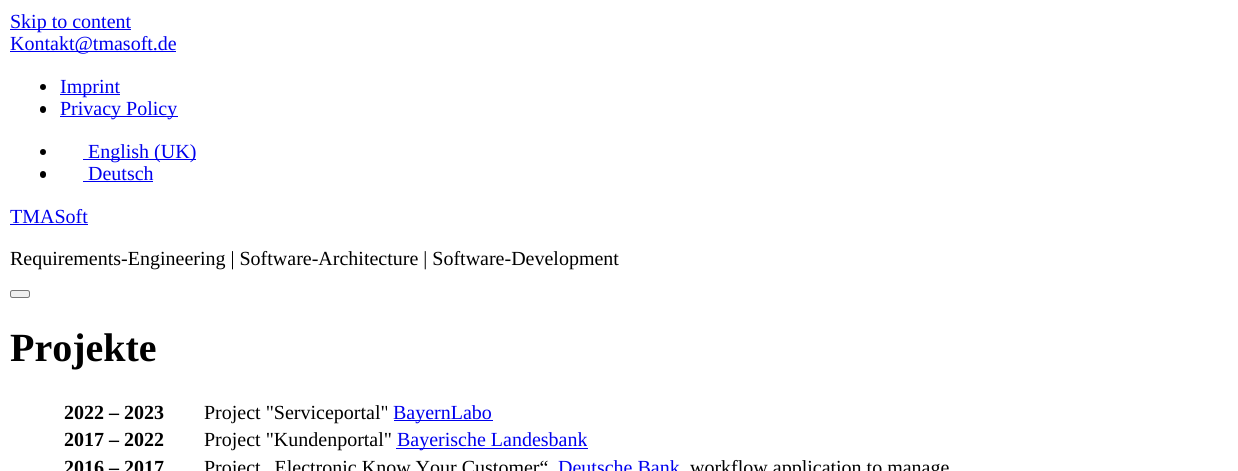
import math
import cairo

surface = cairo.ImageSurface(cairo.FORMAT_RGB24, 1238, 471)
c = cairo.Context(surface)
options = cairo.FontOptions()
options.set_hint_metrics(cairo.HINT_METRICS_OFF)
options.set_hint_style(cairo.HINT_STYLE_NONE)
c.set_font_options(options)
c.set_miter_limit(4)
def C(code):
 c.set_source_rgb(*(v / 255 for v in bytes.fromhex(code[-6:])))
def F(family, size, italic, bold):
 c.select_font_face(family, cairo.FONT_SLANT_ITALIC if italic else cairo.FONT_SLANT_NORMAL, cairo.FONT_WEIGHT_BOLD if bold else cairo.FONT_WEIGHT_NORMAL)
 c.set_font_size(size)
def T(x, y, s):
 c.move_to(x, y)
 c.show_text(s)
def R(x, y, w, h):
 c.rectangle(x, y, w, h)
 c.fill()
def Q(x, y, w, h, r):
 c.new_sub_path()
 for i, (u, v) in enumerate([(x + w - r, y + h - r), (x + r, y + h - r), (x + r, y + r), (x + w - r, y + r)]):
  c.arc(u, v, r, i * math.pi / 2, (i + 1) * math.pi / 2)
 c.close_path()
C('ffffff')
c.paint()
C('0000ee')
R(10,29,121,1)
F('Liberation Serif',20,0,0)
T(10,28,'Skip to content')
R(10,51,166,1)
T(10,50,'Kontakt@tmasoft.de')
C('000000')
c.new_path()
c.arc(43,87,3,0,2 * math.pi)
c.fill()
C('0000ee')
R(60,94,60,1)
T(60,93,'Imprint')
C('000000')
Q(40,106,6,7,3)
c.fill()
C('0000ee')
R(60,116,118,1)
T(60,115,'Privacy Policy')
C('000000')
c.new_path()
c.arc(43,152,3,0,2 * math.pi)
c.fill()
C('0000ee')
R(83,159,113,1)
T(88,158,'English (UK)')
C('000000')
Q(40,171,6,7,3)
c.fill()
C('0000ee')
T(88,180,'Deutsch')
R(83,181,70,1)
T(10,223,'TMASoft')
R(10,224,78,1)
C('000000')
T(10,265,'Requirements-Engineering | Software-Architecture | Software-Development')
C('efefef')
Q(10.5,290.5,19,7,2)
c.fill_preserve()
C('767676')
c.set_line_width(1)
c.stroke()
F('Liberation Serif',40,0,1)
C('000000')
T(10,361,'Projekte')
F('Liberation Serif',20,0,1)
T(64,419,'2022 – 2023')
F('Liberation Serif',20,0,0)
T(204,419,'Project "Serviceportal"')
C('0000ee')
R(394,420,99,1)
T(393,419,'BayernLabo')
F('Liberation Serif',20,0,1)
C('000000')
T(64,446,'2017 – 2022')
F('Liberation Serif',20,0,0)
T(204,446,'Project "Kundenportal"')
C('0000ee')
R(396,448,192,1)
T(397,446,'Bayerische Landesbank')
F('Liberation Serif',20,0,1)
C('000000')
T(64,474,'2016 – 2017')
F('Liberation Serif',20,0,0)
T(204,474,'Project „Electronic Know Your Customer“')
C('0000ee')
T(558,474,'Deutsche Bank')
C('000000')
T(690,474,'workflow application to manage')
surface.write_to_png('o.png')
